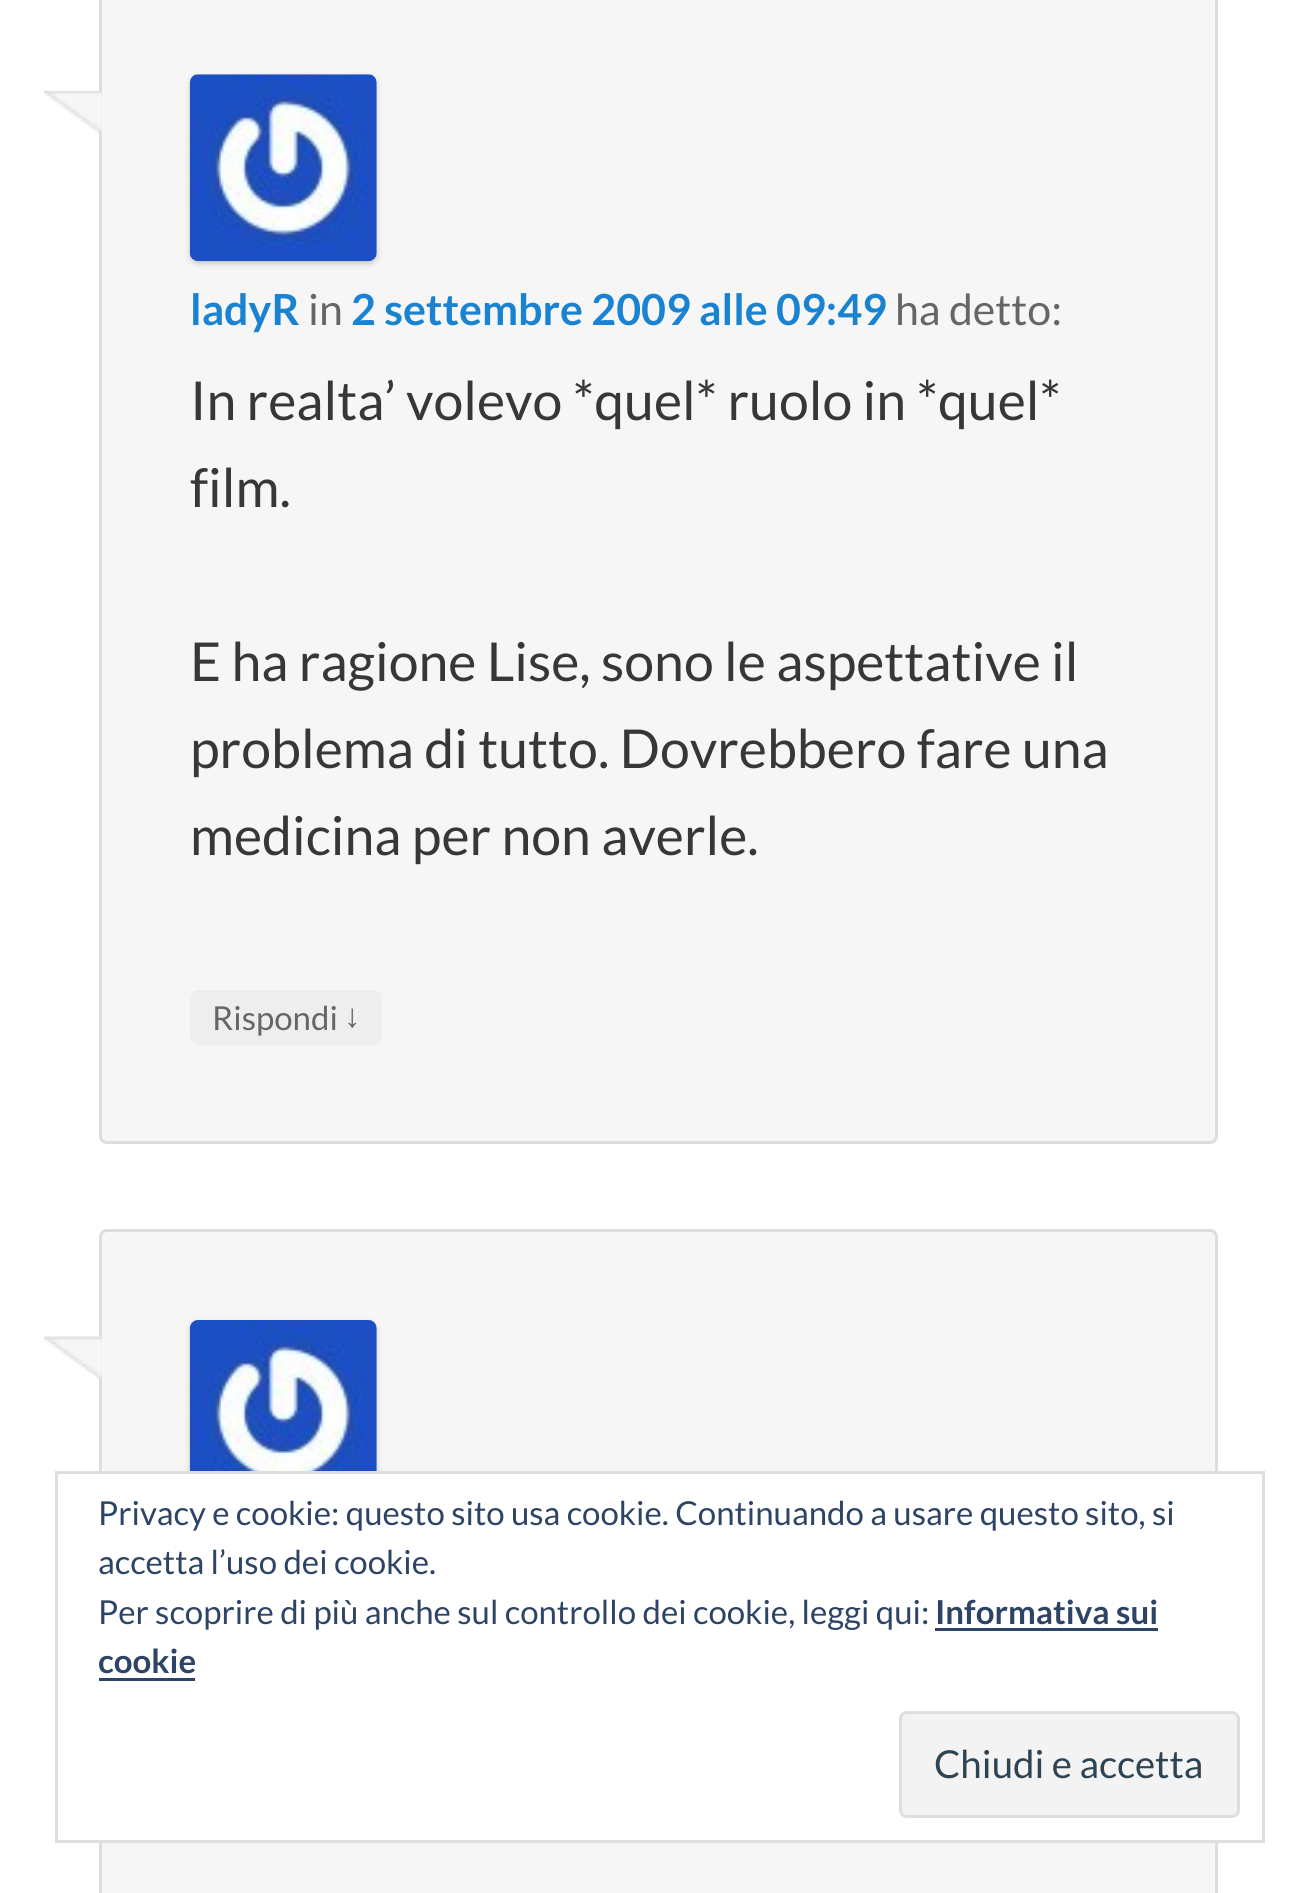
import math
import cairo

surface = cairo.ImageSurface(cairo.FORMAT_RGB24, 1315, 1893)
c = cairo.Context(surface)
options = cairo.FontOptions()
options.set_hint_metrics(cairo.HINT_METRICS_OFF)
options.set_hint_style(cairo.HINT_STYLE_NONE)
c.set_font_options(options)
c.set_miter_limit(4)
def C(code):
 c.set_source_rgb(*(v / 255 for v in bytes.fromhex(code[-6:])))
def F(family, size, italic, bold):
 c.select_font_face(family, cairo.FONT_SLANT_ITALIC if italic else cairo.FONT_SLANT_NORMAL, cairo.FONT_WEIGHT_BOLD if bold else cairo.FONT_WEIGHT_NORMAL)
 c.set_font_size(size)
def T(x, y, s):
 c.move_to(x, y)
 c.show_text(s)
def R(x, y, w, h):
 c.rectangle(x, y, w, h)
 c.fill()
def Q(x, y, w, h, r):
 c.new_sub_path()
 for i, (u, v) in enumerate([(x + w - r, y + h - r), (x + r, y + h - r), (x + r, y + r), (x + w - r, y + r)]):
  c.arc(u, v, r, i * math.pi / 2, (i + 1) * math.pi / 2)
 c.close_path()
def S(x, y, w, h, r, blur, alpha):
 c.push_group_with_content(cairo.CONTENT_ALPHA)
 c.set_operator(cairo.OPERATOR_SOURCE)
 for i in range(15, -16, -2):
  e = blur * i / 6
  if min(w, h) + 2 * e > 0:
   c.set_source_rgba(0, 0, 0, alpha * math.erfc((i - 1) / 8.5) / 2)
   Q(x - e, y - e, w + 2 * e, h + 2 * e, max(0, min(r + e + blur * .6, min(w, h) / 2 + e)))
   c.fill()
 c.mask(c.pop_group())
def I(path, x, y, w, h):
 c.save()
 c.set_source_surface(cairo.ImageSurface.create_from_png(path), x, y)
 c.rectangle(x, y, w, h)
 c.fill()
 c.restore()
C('ffffff')
c.paint()
C('f6f6f6')
Q(100.5,-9.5,1116,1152,6.5)
c.fill_preserve()
C('dddddd')
c.set_line_width(3)
c.stroke()
I('1.png',44,90,58,44)
C('cccccc')
S(190,77,187,187,8,3,1)
I('2.png',189,74,188,188)
F('Lato',42.9,0,1)
C('1982d1')
T(190,325,'ladyR')
F('Lato',42.9,0,0)
C('666666')
T(308,325,'in')
F('Lato',42.9,0,1)
C('1982d1')
T(351,325,'2 settembre 2009 alle 09:49')
F('Lato',42.9,0,0)
C('666666')
T(895,325,'ha detto:')
F('Lato',53.6,0,0)
C('373737')
T(190,420,'In realta’ volevo *quel* ruolo in *quel*')
T(190,507,'film.')
T(190,681,'E ha ragione Lise, sono le aspettative il')
T(190,768,'problema di tutto. Dovrebbero fare una')
T(190,855,'medicina per non averle.')
C('eeeeee')
Q(190,990,192,55,8)
c.fill()
F('Lato',33,0,0)
C('666666')
T(212,1030,'Rispondi')
F('Liberation Sans',33,0,0)
T(344,1027,'↓')
C('f6f6f6')
Q(100.5,1230.5,1116,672,6.5)
c.fill_preserve()
C('dddddd')
c.stroke()
I('3.png',44,1336,58,44)
C('cccccc')
S(190,1323,187,187,8,3,1)
I('4.png',189,1320,188,151)
C('ffffff')
R(99,1474,1119,366)
c.rectangle(56.5,1472.5,1207,369)
C('dedede')
c.stroke()
F('Lato',33,0,0)
C('2e4467')
T(98,1525,'Privacy e cookie: questo sito usa cookie. Continuando a usare questo sito, si')
T(98,1574,'accetta l’uso dei cookie.')
T(98,1624,'Per scoprire di più anche sul controllo dei cookie, leggi qui:')
F('Lato',33,0,1)
T(935,1624,'Informativa sui')
R(935,1628,223,3)
T(98,1673,'cookie')
R(99,1678,96,3)
C('f3f3f3')
Q(900.5,1712.5,338,104,6.5)
c.fill_preserve()
C('dedede')
c.stroke()
F('Lato',38.5,0,0)
C('2e4453')
T(934,1778,'Chiudi e accetta')
surface.write_to_png('o.png')
